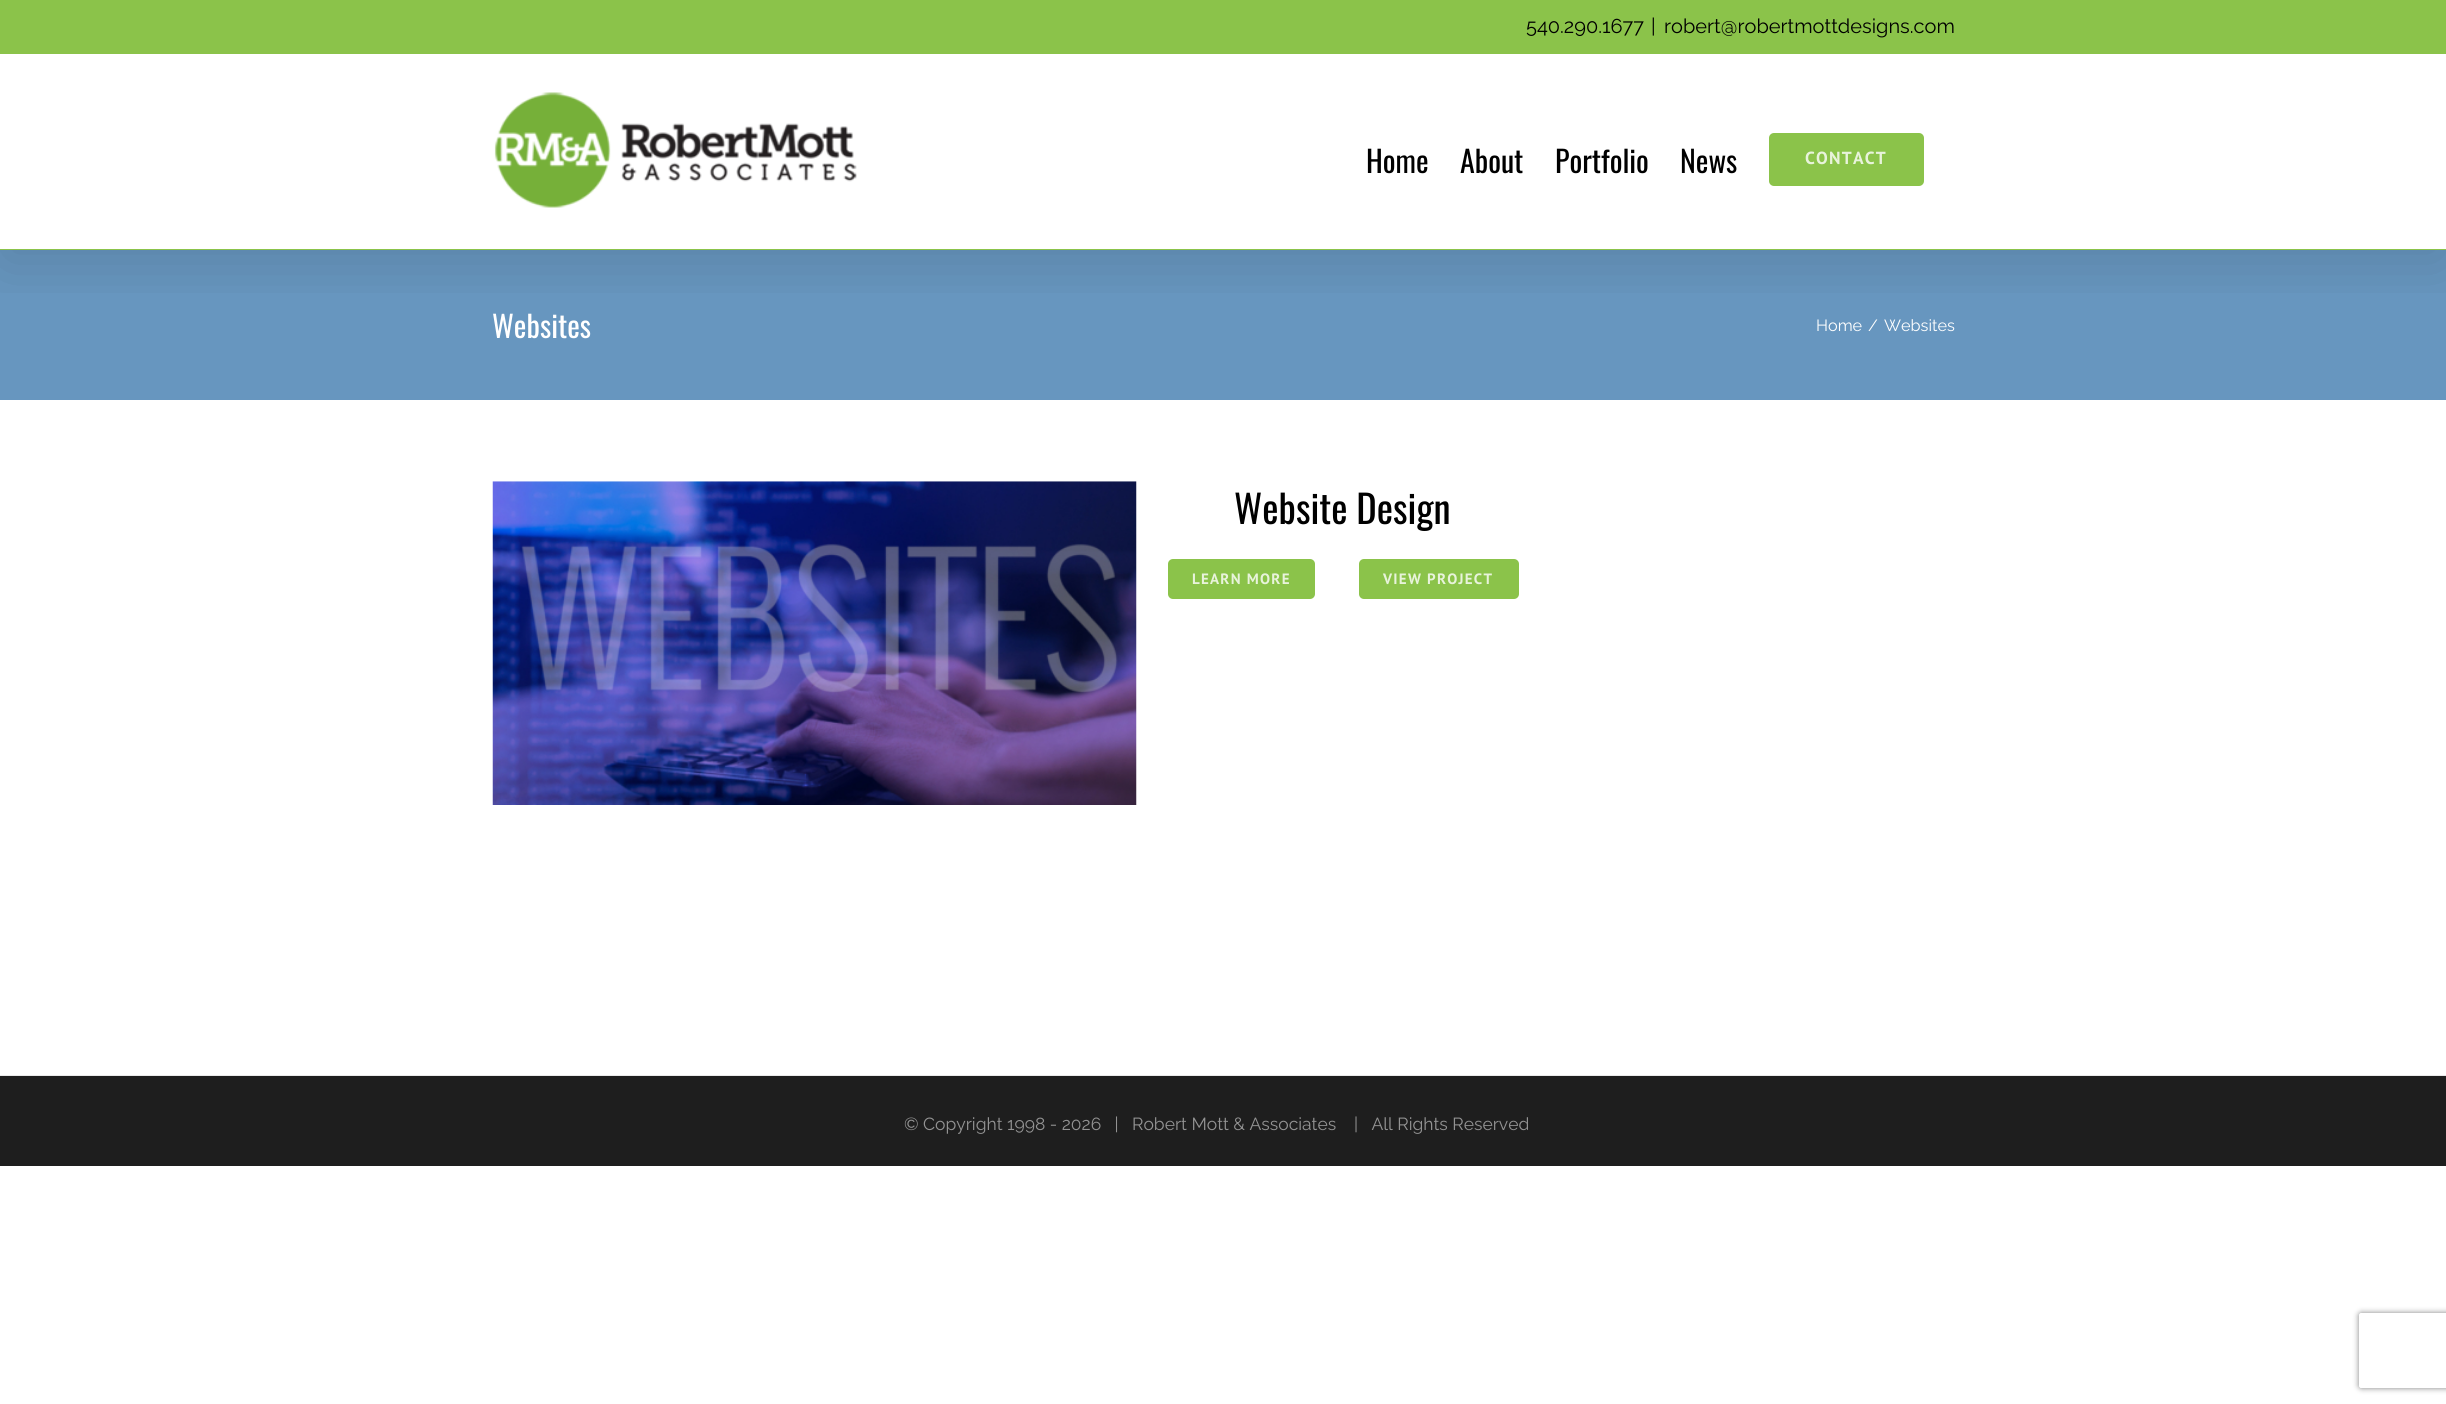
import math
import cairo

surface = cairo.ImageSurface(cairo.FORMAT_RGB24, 2446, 1404)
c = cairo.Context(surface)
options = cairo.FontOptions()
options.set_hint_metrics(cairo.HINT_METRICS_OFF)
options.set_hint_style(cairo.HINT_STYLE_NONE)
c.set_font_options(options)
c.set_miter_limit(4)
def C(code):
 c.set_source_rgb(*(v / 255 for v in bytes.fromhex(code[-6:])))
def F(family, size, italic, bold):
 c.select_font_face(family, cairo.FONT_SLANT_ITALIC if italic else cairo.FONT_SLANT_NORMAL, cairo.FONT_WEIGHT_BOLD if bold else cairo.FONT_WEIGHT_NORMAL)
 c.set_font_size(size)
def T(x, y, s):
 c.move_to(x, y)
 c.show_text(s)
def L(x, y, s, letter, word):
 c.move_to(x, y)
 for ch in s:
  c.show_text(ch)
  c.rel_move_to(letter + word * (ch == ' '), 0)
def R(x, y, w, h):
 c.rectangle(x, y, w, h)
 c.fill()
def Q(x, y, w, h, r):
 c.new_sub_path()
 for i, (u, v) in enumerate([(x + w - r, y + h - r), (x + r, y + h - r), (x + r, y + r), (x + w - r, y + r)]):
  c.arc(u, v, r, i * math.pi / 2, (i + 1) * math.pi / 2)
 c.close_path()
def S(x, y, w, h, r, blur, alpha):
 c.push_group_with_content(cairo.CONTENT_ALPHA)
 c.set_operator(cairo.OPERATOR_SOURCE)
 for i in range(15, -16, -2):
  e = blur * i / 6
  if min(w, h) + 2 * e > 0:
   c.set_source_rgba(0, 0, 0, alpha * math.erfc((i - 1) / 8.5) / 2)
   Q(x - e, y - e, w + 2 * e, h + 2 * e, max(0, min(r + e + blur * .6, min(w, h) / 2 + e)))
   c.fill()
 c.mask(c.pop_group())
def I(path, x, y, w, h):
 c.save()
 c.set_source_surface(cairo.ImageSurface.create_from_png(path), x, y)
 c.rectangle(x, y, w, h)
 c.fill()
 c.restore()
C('ffffff')
c.paint()
C('6796bf')
R(0,250,2446,150)
c.save()
c.rectangle(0,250,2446,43)
c.clip()
C('000000')
S(3,15,2441,245,0,31,.14)
c.restore()
C('8bc34a')
R(0,0,2446,54)
F('Raleway Thin',20,0,0)
C('000000')
T(1526,33,'540.290.1677')
T(1651,33,'|')
T(1664,33,'robert@robertmottdesigns.com')
C('8bc34a')
R(0,249,2446,1)
I('1.png',494,92,363,116)
F('Oswald',30,0,0)
C('000000')
T(1366,173,'Home')
T(1460,173,'About')
T(1555,173,'Portfolio')
T(1680,173,'News')
C('8bc34a')
Q(1769,133,155,53,5)
c.fill()
F('PT Sans',17.5,0,1)
C('e8f3db')
L(1805,164,'CONTACT',1.25,0)
F('Oswald',30,0,0)
C('ffffff')
T(492,338,'Websites')
F('Raleway Thin',16.25,0,0)
T(1816,331,'Home')
T(1868,331,'/')
T(1884,331,'Websites')
I('2.png',492,481,645,324)
F('Oswald',38.75,0,0)
C('000000')
T(1234,524,'Website Design')
C('8bc34a')
Q(1168,559,147,40,5)
c.fill()
F('PT Sans',15,0,1)
C('e8f3db')
L(1192,584,'LEARN MORE',1.25,0)
C('8bc34a')
Q(1359,559,160,40,5)
c.fill()
C('e8f3db')
L(1383,584,'VIEW PROJECT',1.25,0)
C('1e1e1e')
R(0,1076,2446,90)
C('eaeaea')
R(0,1075,2446,1)
F('Raleway Thin',17.5,0,0)
C('939393')
T(904,1130,'© Copyright 1998 - 2026   |   Robert Mott & Associates')
T(1354,1130,'|   All Rights Reserved')
c.save()
c.set_fill_rule(cairo.FILL_RULE_EVEN_ODD)
c.new_path()
c.move_to(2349,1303)
c.line_to(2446,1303)
c.line_to(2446,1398)
c.line_to(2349,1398)
c.close_path()
c.move_to(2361.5,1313)
c.line_to(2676.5,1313)
c.curve_to(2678,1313,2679,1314,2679,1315.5)
c.line_to(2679,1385.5)
c.curve_to(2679,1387,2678,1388,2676.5,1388)
c.line_to(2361.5,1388)
c.curve_to(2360,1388,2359,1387,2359,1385.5)
c.line_to(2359,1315.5)
c.curve_to(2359,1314,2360,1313,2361.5,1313)
c.close_path()
c.clip()
C('808080')
S(2359,1313,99,75,2.5,3,1)
c.restore()
surface.write_to_png('o.png')
